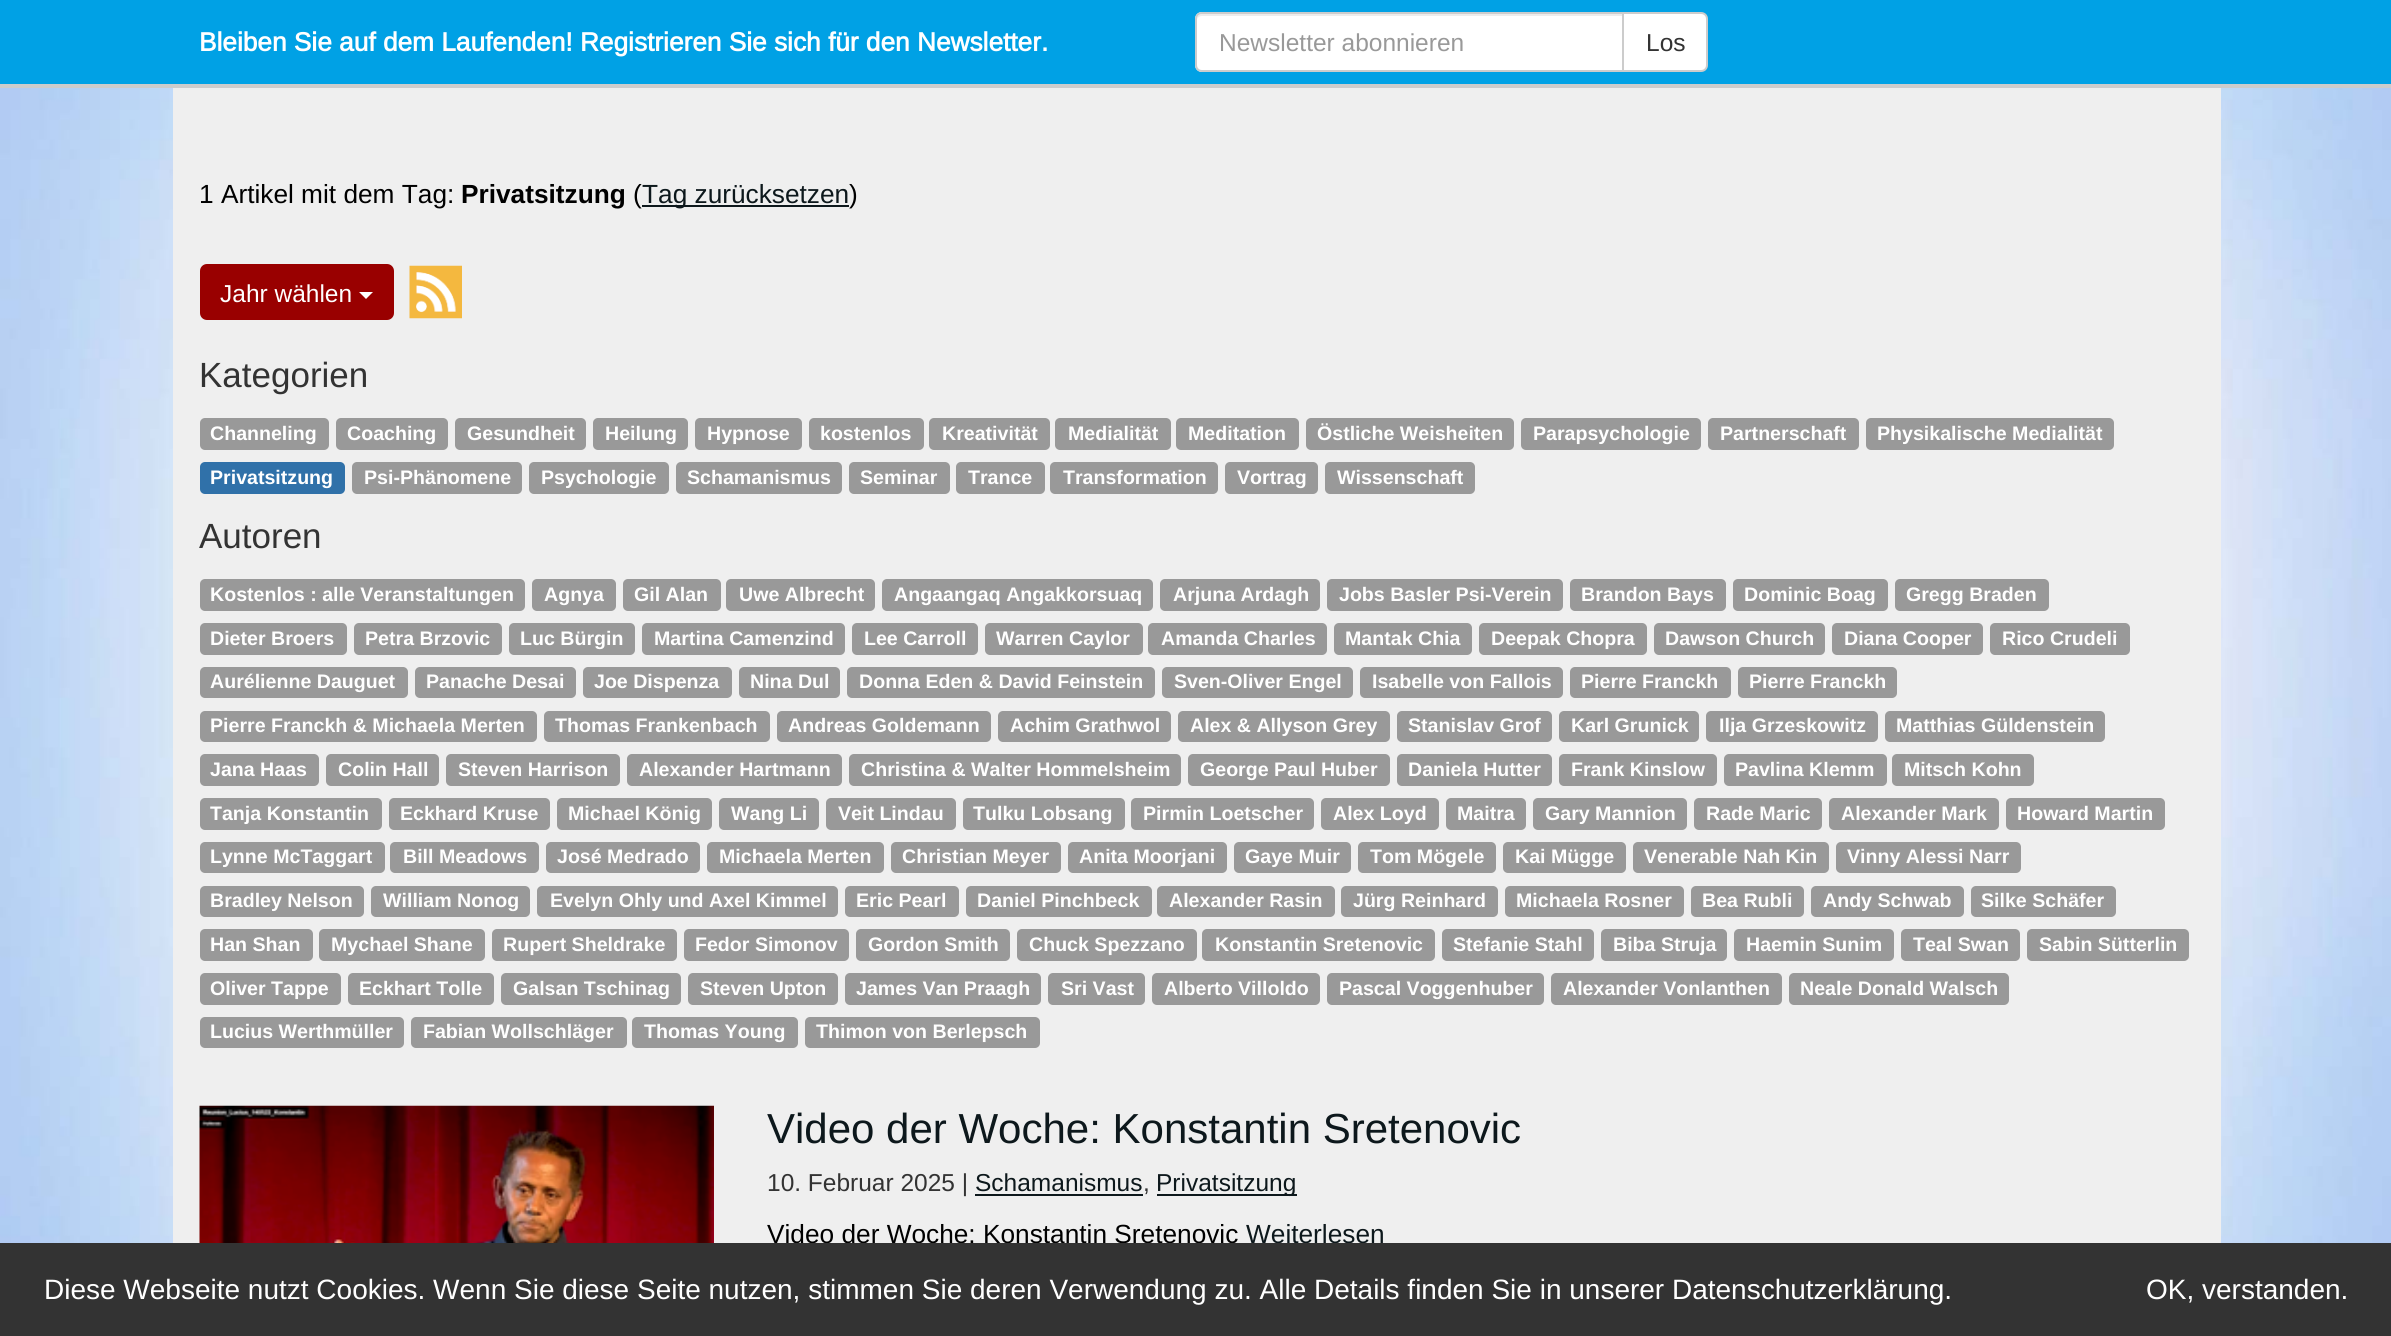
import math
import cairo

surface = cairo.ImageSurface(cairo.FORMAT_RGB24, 2391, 1336)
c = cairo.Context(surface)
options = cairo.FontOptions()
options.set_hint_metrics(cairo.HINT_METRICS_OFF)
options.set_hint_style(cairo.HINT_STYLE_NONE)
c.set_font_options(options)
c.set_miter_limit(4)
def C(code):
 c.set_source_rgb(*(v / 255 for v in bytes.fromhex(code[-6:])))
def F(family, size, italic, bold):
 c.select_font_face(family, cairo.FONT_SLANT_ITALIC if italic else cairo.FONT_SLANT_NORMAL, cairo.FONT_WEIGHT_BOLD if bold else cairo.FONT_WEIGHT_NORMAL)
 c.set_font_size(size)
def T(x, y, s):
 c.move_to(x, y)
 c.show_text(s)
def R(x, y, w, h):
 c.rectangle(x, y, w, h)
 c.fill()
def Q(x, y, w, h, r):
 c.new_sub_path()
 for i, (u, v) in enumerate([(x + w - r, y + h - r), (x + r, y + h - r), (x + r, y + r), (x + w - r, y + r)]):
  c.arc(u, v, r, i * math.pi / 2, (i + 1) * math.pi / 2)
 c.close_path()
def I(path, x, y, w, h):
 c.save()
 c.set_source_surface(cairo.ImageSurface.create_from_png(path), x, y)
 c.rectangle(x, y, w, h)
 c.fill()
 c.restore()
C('ffffff')
c.paint()
I('1.png',0,88,2391,1155)
C('00a1e5')
R(0,0,2391,84)
C('cccccc')
R(0,84,2391,4)
F('Arimo',26.25,0,1)
C('ffffff')
T(199,51,'Bleiben Sie auf dem Laufenden! Registrieren Sie sich für den Newsletter.')
c.new_path()
c.move_to(1202,12)
c.line_to(1624,12)
c.line_to(1624,72)
c.line_to(1202,72)
c.curve_to(1198,72,1195,69,1195,65)
c.line_to(1195,19)
c.curve_to(1195,15,1198,12,1202,12)
c.close_path()
c.fill()
C('ececec')
c.new_path()
c.move_to(1202,16)
c.line_to(1622,16)
c.line_to(1622,14)
c.line_to(1202,14)
c.curve_to(1198,14,1197,18,1197,21)
c.curve_to(1197,18,1199,16,1202,16)
c.close_path()
c.fill()
c.new_path()
c.move_to(1202,13)
c.line_to(1623,13)
c.line_to(1623,71)
c.line_to(1202,71)
c.curve_to(1198.5,71,1196,68.5,1196,65)
c.line_to(1196,19)
c.curve_to(1196,15.5,1198.5,13,1202,13)
c.close_path()
C('cccccc')
c.stroke()
F('Arimo',24.5,0,0)
C('999999')
T(1219,51,'Newsletter abonnieren')
C('ffffff')
c.new_path()
c.move_to(1623,13)
c.line_to(1701,13)
c.curve_to(1704.5,13,1707,15.5,1707,19)
c.line_to(1707,65)
c.curve_to(1707,68.5,1704.5,71,1701,71)
c.line_to(1623,71)
c.close_path()
c.fill_preserve()
C('cccccc')
c.stroke()
C('333333')
T(1646,51,'Los')
C('efefef')
R(173,88,2048,1155)
F('Liberation Sans',26.25,0,0)
C('000000')
T(199,203,'1 Artikel mit dem Tag:')
F('Liberation Sans',26.25,0,1)
T(461,203,'Privatsitzung')
F('Liberation Sans',26.25,0,0)
T(633,203,'(')
C('0d181c')
R(642,205,207,2)
T(642,203,'Tag zurücksetzen')
C('000000')
T(849,203,')')
C('990000')
Q(200,264,194,56,7)
c.fill()
F('Liberation Sans',24.5,0,0)
C('ffffff')
T(220,302,'Jahr wählen')
c.new_path()
c.move_to(359,292)
c.line_to(373,292)
c.line_to(366,299)
c.close_path()
c.fill()
I('2.png',409,265,53,54)
F('Liberation Sans',35,0,0)
C('333333')
T(199,387,'Kategorien')
C('999999')
Q(200,418,129,32,5)
c.fill()
F('Liberation Sans',19.6,0,1)
C('ffffff')
T(210,440,'Channeling')
C('999999')
Q(336,418,112,32,5)
c.fill()
C('ffffff')
T(347,440,'Coaching')
C('999999')
Q(455,418,131,32,5)
c.fill()
C('ffffff')
T(467,440,'Gesundheit')
C('999999')
Q(593,418,95,32,5)
c.fill()
C('ffffff')
T(605,440,'Heilung')
C('999999')
Q(695,418,107,32,5)
c.fill()
C('ffffff')
T(707,440,'Hypnose')
C('999999')
Q(809,418,115,32,5)
c.fill()
C('ffffff')
T(820,440,'kostenlos')
C('999999')
Q(929,418,121,32,5)
c.fill()
C('ffffff')
T(942,440,'Kreativität')
C('999999')
Q(1055,418,116,32,5)
c.fill()
C('ffffff')
T(1068,440,'Medialität')
C('999999')
Q(1176,418,123,32,5)
c.fill()
C('ffffff')
T(1188,440,'Meditation')
C('999999')
Q(1306,418,208,32,5)
c.fill()
C('ffffff')
T(1317,440,'Östliche Weisheiten')
C('999999')
Q(1521,418,180,32,5)
c.fill()
C('ffffff')
T(1533,440,'Parapsychologie')
C('999999')
Q(1708,418,151,32,5)
c.fill()
C('ffffff')
T(1720,440,'Partnerschaft')
C('999999')
Q(1866,418,248,32,5)
c.fill()
C('ffffff')
T(1877,440,'Physikalische Medialität')
C('3071a9')
Q(200,462,145,32,5)
c.fill()
C('ffffff')
T(210,484,'Privatsitzung')
C('999999')
Q(352,462,170,32,5)
c.fill()
C('ffffff')
T(364,484,'Psi-Phänomene')
C('999999')
Q(529,462,140,32,5)
c.fill()
C('ffffff')
T(541,484,'Psychologie')
C('999999')
Q(676,462,166,32,5)
c.fill()
C('ffffff')
T(687,484,'Schamanismus')
C('999999')
Q(849,462,101,32,5)
c.fill()
C('ffffff')
T(860,484,'Seminar')
C('999999')
Q(956,462,89,32,5)
c.fill()
C('ffffff')
T(968,484,'Trance')
C('999999')
Q(1050,462,168,32,5)
c.fill()
C('ffffff')
T(1063,484,'Transformation')
C('999999')
Q(1225,462,93,32,5)
c.fill()
C('ffffff')
T(1237,484,'Vortrag')
C('999999')
Q(1325,462,150,32,5)
c.fill()
C('ffffff')
T(1337,484,'Wissenschaft')
F('Liberation Sans',35,0,0)
C('333333')
T(199,548,'Autoren')
C('999999')
Q(200,579,325,32,5)
c.fill()
F('Liberation Sans',19.6,0,1)
C('ffffff')
T(210,601,'Kostenlos : alle Veranstaltungen')
C('999999')
Q(532,579,84,32,5)
c.fill()
C('ffffff')
T(544,601,'Agnya')
C('999999')
Q(623,579,98,32,5)
c.fill()
C('ffffff')
T(634,601,'Gil Alan')
C('999999')
Q(726,579,149,32,5)
c.fill()
C('ffffff')
T(739,601,'Uwe Albrecht')
C('999999')
Q(882,579,271,32,5)
c.fill()
C('ffffff')
T(894,601,'Angaangaq Angakkorsuaq')
C('999999')
Q(1160,579,160,32,5)
c.fill()
C('ffffff')
T(1173,601,'Arjuna Ardagh')
C('999999')
Q(1327,579,236,32,5)
c.fill()
C('ffffff')
T(1339,601,'Jobs Basler Psi-Verein')
C('999999')
Q(1570,579,156,32,5)
c.fill()
C('ffffff')
T(1581,601,'Brandon Bays')
C('999999')
Q(1733,579,155,32,5)
c.fill()
C('ffffff')
T(1744,601,'Dominic Boag')
C('999999')
Q(1895,579,154,32,5)
c.fill()
C('ffffff')
T(1906,601,'Gregg Braden')
C('999999')
Q(200,623,147,32,5)
c.fill()
C('ffffff')
T(210,645,'Dieter Broers')
C('999999')
Q(354,623,148,32,5)
c.fill()
C('ffffff')
T(365,645,'Petra Brzovic')
C('999999')
Q(509,623,126,32,5)
c.fill()
C('ffffff')
T(520,645,'Luc Bürgin')
C('999999')
Q(642,623,203,32,5)
c.fill()
C('ffffff')
T(654,645,'Martina Camenzind')
C('999999')
Q(852,623,126,32,5)
c.fill()
C('ffffff')
T(864,645,'Lee Carroll')
C('999999')
Q(985,623,158,32,5)
c.fill()
C('ffffff')
T(996,645,'Warren Caylor')
C('999999')
Q(1148,623,179,32,5)
c.fill()
C('ffffff')
T(1161,645,'Amanda Charles')
C('999999')
Q(1334,623,138,32,5)
c.fill()
C('ffffff')
T(1345,645,'Mantak Chia')
C('999999')
Q(1479,623,168,32,5)
c.fill()
C('ffffff')
T(1491,645,'Deepak Chopra')
C('999999')
Q(1654,623,171,32,5)
c.fill()
C('ffffff')
T(1665,645,'Dawson Church')
C('999999')
Q(1832,623,151,32,5)
c.fill()
C('ffffff')
T(1844,645,'Diana Cooper')
C('999999')
Q(1990,623,140,32,5)
c.fill()
C('ffffff')
T(2002,645,'Rico Crudeli')
C('999999')
Q(200,667,208,31,5)
c.fill()
C('ffffff')
T(210,688,'Aurélienne Dauguet')
C('999999')
Q(415,667,161,31,5)
c.fill()
C('ffffff')
T(426,688,'Panache Desai')
C('999999')
Q(583,667,149,31,5)
c.fill()
C('ffffff')
T(594,688,'Joe Dispenza')
C('999999')
Q(739,667,101,31,5)
c.fill()
C('ffffff')
T(750,688,'Nina Dul')
C('999999')
Q(847,667,308,31,5)
c.fill()
C('ffffff')
T(859,688,'Donna Eden & David Feinstein')
C('999999')
Q(1162,667,191,31,5)
c.fill()
C('ffffff')
T(1174,688,'Sven-Oliver Engel')
C('999999')
Q(1360,667,203,31,5)
c.fill()
C('ffffff')
T(1372,688,'Isabelle von Fallois')
C('999999')
Q(1570,667,161,31,5)
c.fill()
C('ffffff')
T(1581,688,'Pierre Franckh')
C('999999')
Q(1738,667,159,31,5)
c.fill()
C('ffffff')
T(1749,688,'Pierre Franckh')
C('999999')
Q(200,711,337,31,5)
c.fill()
C('ffffff')
T(210,732,'Pierre Franckh & Michaela Merten')
C('999999')
Q(544,711,226,31,5)
c.fill()
C('ffffff')
T(555,732,'Thomas Frankenbach')
C('999999')
Q(777,711,214,31,5)
c.fill()
C('ffffff')
T(788,732,'Andreas Goldemann')
C('999999')
Q(998,711,173,31,5)
c.fill()
C('ffffff')
T(1010,732,'Achim Grathwol')
C('999999')
Q(1178,711,212,31,5)
c.fill()
C('ffffff')
T(1190,732,'Alex & Allyson Grey')
C('999999')
Q(1397,711,155,31,5)
c.fill()
C('ffffff')
T(1408,732,'Stanislav Grof')
C('999999')
Q(1559,711,140,31,5)
c.fill()
C('ffffff')
T(1571,732,'Karl Grunick')
C('999999')
Q(1706,711,172,31,5)
c.fill()
C('ffffff')
T(1719,732,'Ilja Grzeskowitz')
C('999999')
Q(1885,711,220,31,5)
c.fill()
C('ffffff')
T(1896,732,'Matthias Güldenstein')
C('999999')
Q(200,754,119,32,5)
c.fill()
C('ffffff')
T(210,776,'Jana Haas')
C('999999')
Q(326,754,113,32,5)
c.fill()
C('ffffff')
T(338,776,'Colin Hall')
C('999999')
Q(446,754,174,32,5)
c.fill()
C('ffffff')
T(458,776,'Steven Harrison')
C('999999')
Q(627,754,215,32,5)
c.fill()
C('ffffff')
T(639,776,'Alexander Hartmann')
C('999999')
Q(849,754,332,32,5)
c.fill()
C('ffffff')
T(861,776,'Christina & Walter Hommelsheim')
C('999999')
Q(1188,754,202,32,5)
c.fill()
C('ffffff')
T(1200,776,'George Paul Huber')
C('999999')
Q(1397,754,155,32,5)
c.fill()
C('ffffff')
T(1408,776,'Daniela Hutter')
C('999999')
Q(1559,754,158,32,5)
c.fill()
C('ffffff')
T(1571,776,'Frank Kinslow')
C('999999')
Q(1724,754,163,32,5)
c.fill()
C('ffffff')
T(1735,776,'Pavlina Klemm')
C('999999')
Q(1892,754,142,32,5)
c.fill()
C('ffffff')
T(1904,776,'Mitsch Kohn')
C('999999')
Q(200,798,182,32,5)
c.fill()
C('ffffff')
T(210,820,'Tanja Konstantin')
C('999999')
Q(389,798,161,32,5)
c.fill()
C('ffffff')
T(400,820,'Eckhard Kruse')
C('999999')
Q(557,798,155,32,5)
c.fill()
C('ffffff')
T(568,820,'Michael König')
C('999999')
Q(719,798,100,32,5)
c.fill()
C('ffffff')
T(731,820,'Wang Li')
C('999999')
Q(826,798,130,32,5)
c.fill()
C('ffffff')
T(838,820,'Veit Lindau')
C('999999')
Q(963,798,162,32,5)
c.fill()
C('ffffff')
T(973,820,'Tulku Lobsang')
C('999999')
Q(1131,798,183,32,5)
c.fill()
C('ffffff')
T(1143,820,'Pirmin Loetscher')
C('999999')
Q(1321,798,118,32,5)
c.fill()
C('ffffff')
T(1333,820,'Alex Loyd')
C('999999')
Q(1446,798,80,32,5)
c.fill()
C('ffffff')
T(1457,820,'Maitra')
C('999999')
Q(1533,798,154,32,5)
c.fill()
C('ffffff')
T(1545,820,'Gary Mannion')
C('999999')
Q(1694,798,128,32,5)
c.fill()
C('ffffff')
T(1706,820,'Rade Maric')
C('999999')
Q(1829,798,170,32,5)
c.fill()
C('ffffff')
T(1841,820,'Alexander Mark')
C('999999')
Q(2006,798,159,32,5)
c.fill()
C('ffffff')
T(2017,820,'Howard Martin')
C('999999')
Q(200,842,185,31,5)
c.fill()
C('ffffff')
T(210,863,'Lynne McTaggart')
C('999999')
Q(390,842,149,31,5)
c.fill()
C('ffffff')
T(403,863,'Bill Meadows')
C('999999')
Q(546,842,154,31,5)
c.fill()
C('ffffff')
T(557,863,'José Medrado')
C('999999')
Q(707,842,177,31,5)
c.fill()
C('ffffff')
T(719,863,'Michaela Merten')
C('999999')
Q(891,842,170,31,5)
c.fill()
C('ffffff')
T(902,863,'Christian Meyer')
C('999999')
Q(1068,842,159,31,5)
c.fill()
C('ffffff')
T(1079,863,'Anita Moorjani')
C('999999')
Q(1234,842,117,31,5)
c.fill()
C('ffffff')
T(1245,863,'Gaye Muir')
C('999999')
Q(1358,842,138,31,5)
c.fill()
C('ffffff')
T(1370,863,'Tom Mögele')
C('999999')
Q(1503,842,123,31,5)
c.fill()
C('ffffff')
T(1515,863,'Kai Mügge')
C('999999')
Q(1633,842,196,31,5)
c.fill()
C('ffffff')
T(1644,863,'Venerable Nah Kin')
C('999999')
Q(1836,842,185,31,5)
c.fill()
C('ffffff')
T(1847,863,'Vinny Alessi Narr')
C('999999')
Q(200,886,164,31,5)
c.fill()
C('ffffff')
T(210,907,'Bradley Nelson')
C('999999')
Q(371,886,159,31,5)
c.fill()
C('ffffff')
T(383,907,'William Nonog')
C('999999')
Q(537,886,301,31,5)
c.fill()
C('ffffff')
T(550,907,'Evelyn Ohly und Axel Kimmel')
C('999999')
Q(845,886,114,31,5)
c.fill()
C('ffffff')
T(856,907,'Eric Pearl')
C('999999')
Q(966,886,186,31,5)
c.fill()
C('ffffff')
T(977,907,'Daniel Pinchbeck')
C('999999')
Q(1157,886,178,31,5)
c.fill()
C('ffffff')
T(1169,907,'Alexander Rasin')
C('999999')
Q(1341,886,157,31,5)
c.fill()
C('ffffff')
T(1353,907,'Jürg Reinhard')
C('999999')
Q(1505,886,179,31,5)
c.fill()
C('ffffff')
T(1516,907,'Michaela Rosner')
C('999999')
Q(1691,886,113,31,5)
c.fill()
C('ffffff')
T(1702,907,'Bea Rubli')
C('999999')
Q(1811,886,153,31,5)
c.fill()
C('ffffff')
T(1823,907,'Andy Schwab')
C('999999')
Q(1971,886,145,31,5)
c.fill()
C('ffffff')
T(1981,907,'Silke Schäfer')
C('999999')
Q(200,929,113,32,5)
c.fill()
C('ffffff')
T(210,951,'Han Shan')
C('999999')
Q(319,929,166,32,5)
c.fill()
C('ffffff')
T(331,951,'Mychael Shane')
C('999999')
Q(492,929,185,32,5)
c.fill()
C('ffffff')
T(503,951,'Rupert Sheldrake')
C('999999')
Q(684,929,165,32,5)
c.fill()
C('ffffff')
T(695,951,'Fedor Simonov')
C('999999')
Q(856,929,154,32,5)
c.fill()
C('ffffff')
T(868,951,'Gordon Smith')
C('999999')
Q(1017,929,180,32,5)
c.fill()
C('ffffff')
T(1029,951,'Chuck Spezzano')
C('999999')
Q(1202,929,233,32,5)
c.fill()
C('ffffff')
T(1215,951,'Konstantin Sretenovic')
C('999999')
Q(1442,929,152,32,5)
c.fill()
C('ffffff')
T(1453,951,'Stefanie Stahl')
C('999999')
Q(1601,929,126,32,5)
c.fill()
C('ffffff')
T(1613,951,'Biba Struja')
C('999999')
Q(1734,929,160,32,5)
c.fill()
C('ffffff')
T(1746,951,'Haemin Sunim')
C('999999')
Q(1901,929,119,32,5)
c.fill()
C('ffffff')
T(1913,951,'Teal Swan')
C('999999')
Q(2027,929,162,32,5)
c.fill()
C('ffffff')
T(2039,951,'Sabin Sütterlin')
C('999999')
Q(200,973,141,32,5)
c.fill()
C('ffffff')
T(210,995,'Oliver Tappe')
C('999999')
Q(348,973,146,32,5)
c.fill()
C('ffffff')
T(359,995,'Eckhart Tolle')
C('999999')
Q(501,973,180,32,5)
c.fill()
C('ffffff')
T(513,995,'Galsan Tschinag')
C('999999')
Q(688,973,150,32,5)
c.fill()
C('ffffff')
T(700,995,'Steven Upton')
C('999999')
Q(845,973,196,32,5)
c.fill()
C('ffffff')
T(856,995,'James Van Praagh')
C('999999')
Q(1048,973,97,32,5)
c.fill()
C('ffffff')
T(1061,995,'Sri Vast')
C('999999')
Q(1152,973,168,32,5)
c.fill()
C('ffffff')
T(1164,995,'Alberto Villoldo')
C('999999')
Q(1327,973,217,32,5)
c.fill()
C('ffffff')
T(1339,995,'Pascal Voggenhuber')
C('999999')
Q(1551,973,231,32,5)
c.fill()
C('ffffff')
T(1563,995,'Alexander Vonlanthen')
C('999999')
Q(1789,973,220,32,5)
c.fill()
C('ffffff')
T(1800,995,'Neale Donald Walsch')
C('999999')
Q(200,1017,204,31,5)
c.fill()
C('ffffff')
T(210,1038,'Lucius Werthmüller')
C('999999')
Q(411,1017,216,31,5)
c.fill()
C('ffffff')
T(423,1038,'Fabian Wollschläger')
C('999999')
Q(632,1017,166,31,5)
c.fill()
C('ffffff')
T(644,1038,'Thomas Young')
C('999999')
Q(805,1017,235,31,5)
c.fill()
C('ffffff')
T(816,1038,'Thimon von Berlepsch')
I('3.png',199,1105,515,138)
F('Arimo',42,0,0)
C('0d181c')
T(767,1143,'Video der Woche: Konstantin Sretenovic')
F('Liberation Sans',24.5,0,0)
C('333333')
T(767,1191,'10. Februar 2025 |')
C('0d181c')
T(975,1191,'Schamanismus')
R(975,1194,168,2)
C('333333')
T(1143,1191,',')
C('0d181c')
R(1157,1194,140,2)
T(1156,1191,'Privatsitzung')
F('Liberation Sans',26.25,0,0)
C('000000')
T(767,1243,'Video der Woche: Konstantin Sretenovic')
C('0d181c')
T(1246,1243,'Weiterlesen')
C('333333')
R(0,1243,2391,93)
F('Liberation Sans',28,0,0)
C('ffffff')
T(44,1299,'Diese Webseite nutzt Cookies. Wenn Sie diese Seite nutzen, stimmen Sie deren Verwendung zu. Alle Details finden Sie in unserer Datenschutzerklärung.')
T(2146,1299,'OK, verstanden.')
surface.write_to_png('o.png')
